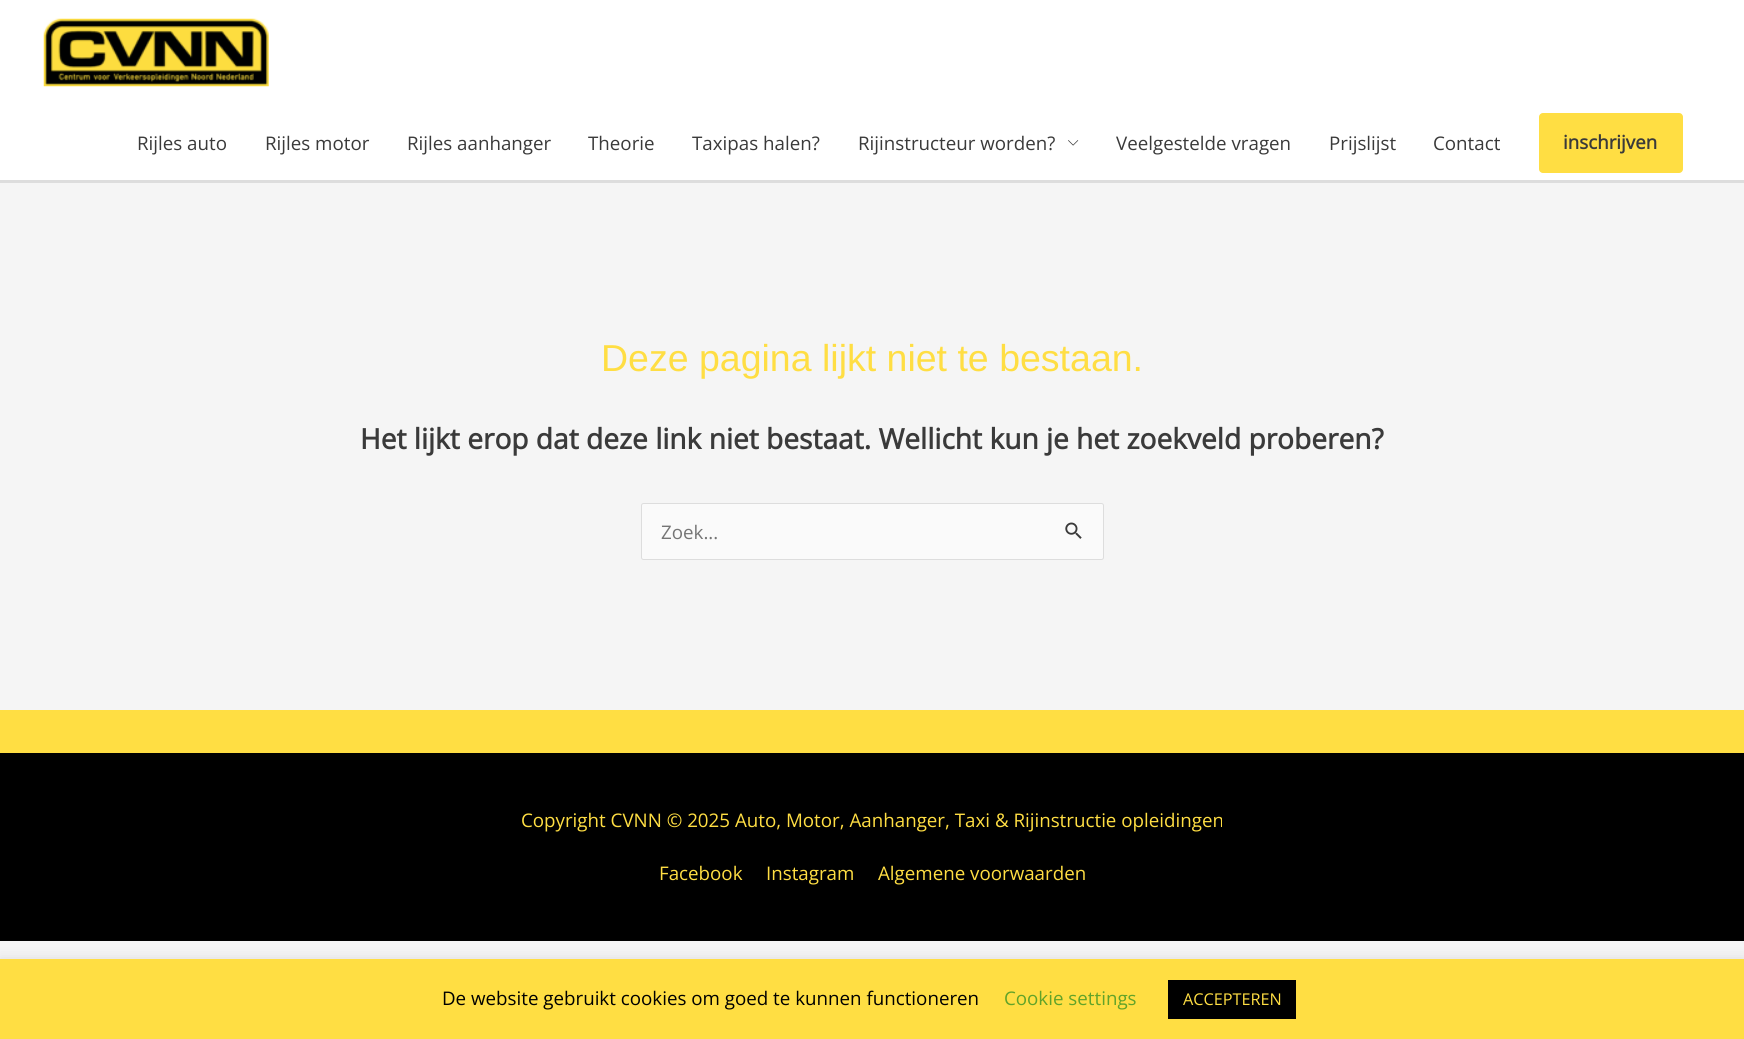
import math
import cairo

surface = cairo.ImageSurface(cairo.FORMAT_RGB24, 1744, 1039)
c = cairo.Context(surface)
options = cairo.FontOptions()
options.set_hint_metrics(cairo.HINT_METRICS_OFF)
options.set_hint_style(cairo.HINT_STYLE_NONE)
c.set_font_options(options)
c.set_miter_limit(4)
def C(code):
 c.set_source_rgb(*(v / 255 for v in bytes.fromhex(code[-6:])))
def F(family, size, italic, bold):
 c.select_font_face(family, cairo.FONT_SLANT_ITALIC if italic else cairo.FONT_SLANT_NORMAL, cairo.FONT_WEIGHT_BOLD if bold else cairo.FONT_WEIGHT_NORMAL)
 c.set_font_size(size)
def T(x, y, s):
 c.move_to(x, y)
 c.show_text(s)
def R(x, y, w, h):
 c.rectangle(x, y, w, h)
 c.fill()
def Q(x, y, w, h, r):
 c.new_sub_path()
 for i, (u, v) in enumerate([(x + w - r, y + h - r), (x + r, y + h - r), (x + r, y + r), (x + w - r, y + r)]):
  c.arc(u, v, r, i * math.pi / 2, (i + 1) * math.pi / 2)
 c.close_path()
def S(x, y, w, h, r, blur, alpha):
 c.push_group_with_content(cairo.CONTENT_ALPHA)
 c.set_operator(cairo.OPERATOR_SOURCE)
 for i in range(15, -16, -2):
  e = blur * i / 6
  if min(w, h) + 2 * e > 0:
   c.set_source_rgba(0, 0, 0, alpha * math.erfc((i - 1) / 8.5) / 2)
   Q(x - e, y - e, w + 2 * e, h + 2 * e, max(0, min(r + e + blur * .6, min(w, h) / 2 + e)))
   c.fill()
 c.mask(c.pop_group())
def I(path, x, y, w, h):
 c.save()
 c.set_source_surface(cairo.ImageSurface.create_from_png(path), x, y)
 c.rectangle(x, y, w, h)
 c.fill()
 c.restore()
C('f5f5f5')
c.paint()
C('ffffff')
R(0,0,1744,180)
C('dddddd')
R(0,180,1744,3)
I('1.png',43,18,226,69)
F('Open Sans',18.75,0,0)
C('3a3a3a')
T(137,150,'Rijles auto')
T(265,150,'Rijles motor')
T(407,150,'Rijles aanhanger')
T(588,150,'Theorie')
T(692,150,'Taxipas halen?')
T(858,150,'Rijinstructeur worden?')
I('2.png',1068,140,11,6)
T(1116,150,'Veelgestelde vragen')
T(1329,150,'Prijslijst')
T(1433,150,'Contact')
C('ffde43')
Q(1539,113,144,60,4)
c.fill()
F('Open Sans',18.75,0,1)
C('3a3a3a')
T(1563,149,'inschrijven')
F('Liberation Sans',37.5,0,0)
C('ffde43')
T(601,371,'Deze pagina lijkt niet te bestaan.')
F('Open Sans',28.1,0,1)
C('3a3a3a')
T(360,449,'Het lijkt erop dat deze link niet bestaat. Wellicht kun je het zoekveld proberen?')
C('fafafa')
Q(641.5,503.5,462,56,2)
c.fill_preserve()
C('dddddd')
c.set_line_width(1)
c.stroke()
F('Open Sans',18.75,0,0)
C('757575')
T(661,539,'Zoek...')
I('3.png',1065,522,17,17)
C('ffde43')
R(0,710,1744,43)
C('000000')
R(0,753,1744,188)
C('ffde43')
T(521,827,'Copyright CVNN © 2025 Auto, Motor, Aanhanger, Taxi & Rijinstructie opleidingen')
T(659,880,'Facebook')
T(766,880,'Instagram')
T(878,880,'Algemene voorwaarden')
C('acabab')
S(0,958,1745,81,0,6,.3)
C('ffde43')
R(0,959,1744,80)
C('000000')
T(442,1005,'De website gebruikt cookies om goed te kunnen functioneren')
C('62a329')
T(1004,1005,'Cookie settings')
C('000000')
R(1168,980,128,39)
F('Open Sans',16.25,0,0)
C('ffde43')
T(1183,1005,'ACCEPTEREN')
surface.write_to_png('o.png')
